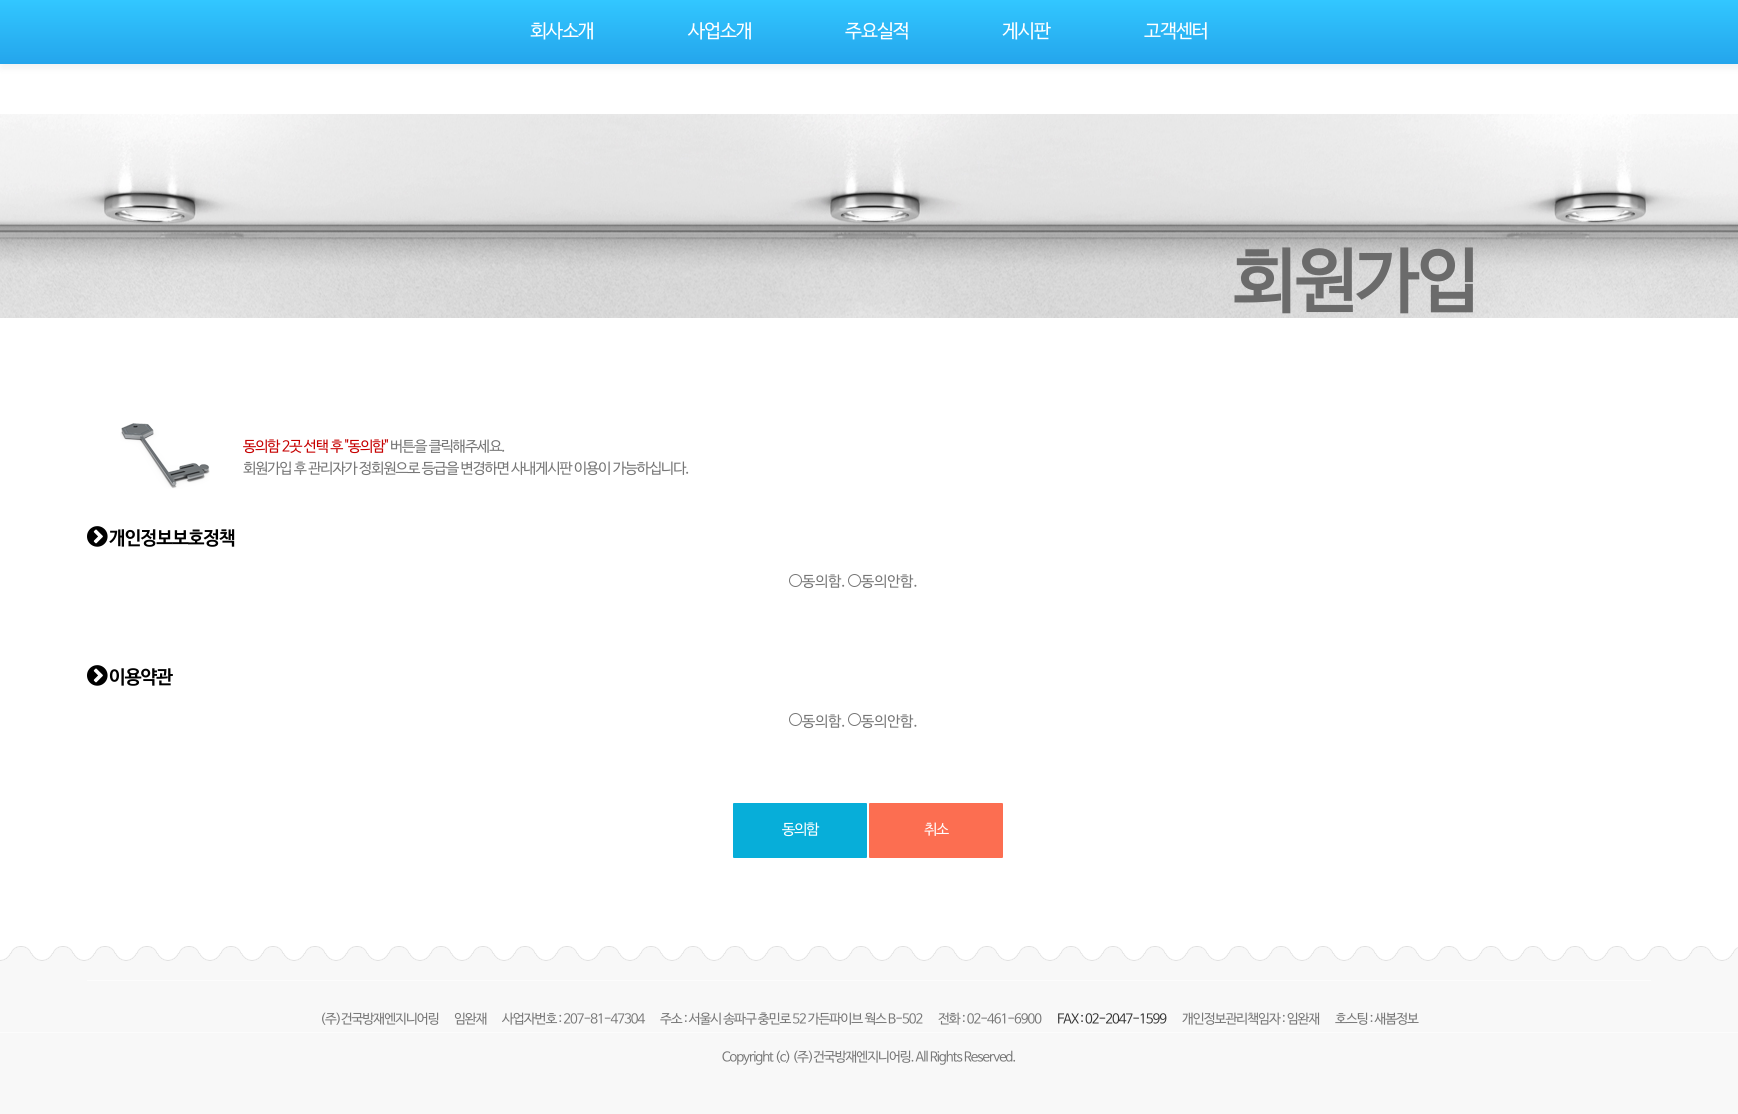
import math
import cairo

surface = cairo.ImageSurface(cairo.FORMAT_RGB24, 1738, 1114)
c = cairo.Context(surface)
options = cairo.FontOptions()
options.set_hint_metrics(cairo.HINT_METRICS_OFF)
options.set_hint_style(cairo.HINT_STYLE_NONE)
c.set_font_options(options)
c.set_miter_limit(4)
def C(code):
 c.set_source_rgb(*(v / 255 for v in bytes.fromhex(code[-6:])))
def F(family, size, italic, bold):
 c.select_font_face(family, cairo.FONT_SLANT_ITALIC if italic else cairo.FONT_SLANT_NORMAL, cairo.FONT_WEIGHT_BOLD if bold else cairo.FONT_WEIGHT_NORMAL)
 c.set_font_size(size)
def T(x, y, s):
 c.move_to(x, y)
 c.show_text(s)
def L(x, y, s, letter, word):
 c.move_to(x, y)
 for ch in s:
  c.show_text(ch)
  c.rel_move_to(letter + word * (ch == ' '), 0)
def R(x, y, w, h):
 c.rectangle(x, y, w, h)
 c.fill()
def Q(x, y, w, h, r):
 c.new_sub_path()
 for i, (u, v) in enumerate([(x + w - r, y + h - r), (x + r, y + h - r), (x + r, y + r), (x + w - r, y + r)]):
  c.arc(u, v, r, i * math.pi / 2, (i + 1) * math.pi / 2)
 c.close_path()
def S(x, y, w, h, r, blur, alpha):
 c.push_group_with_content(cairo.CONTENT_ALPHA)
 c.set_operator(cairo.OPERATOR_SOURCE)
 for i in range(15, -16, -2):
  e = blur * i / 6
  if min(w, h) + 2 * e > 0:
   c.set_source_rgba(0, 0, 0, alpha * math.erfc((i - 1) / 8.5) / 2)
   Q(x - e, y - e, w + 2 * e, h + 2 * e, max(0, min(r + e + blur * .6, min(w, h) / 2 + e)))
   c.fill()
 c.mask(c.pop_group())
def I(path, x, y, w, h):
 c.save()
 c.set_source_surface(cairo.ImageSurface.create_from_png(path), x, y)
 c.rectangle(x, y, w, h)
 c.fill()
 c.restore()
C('ffffff')
c.paint()
C('000000')
S(1,4,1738,64,0,4,.06)
gradient = cairo.LinearGradient(869,64,869,0)
gradient.add_color_stop_rgba(0,0.141,0.647,0.925,1)
gradient.add_color_stop_rgba(1,0.196,0.78,1,1)
c.set_source(gradient)
R(0,0,1738,64)
F('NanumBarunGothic',19,0,0)
C('ffffff')
L(530,37,'회사소개',-1,0)
L(688,37,'사업소개',-1,0)
L(845,37,'주요실적',-1,0)
L(1002,37,'게시판',-1,0)
L(1144,37,'고객센터',-1,0)
I('1.png',0,114,1738,204)
F('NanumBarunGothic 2',70,0,1)
C('6b6b6b')
L(1232,304,'회원가입',-1,0)
I('2.png',120,423,90,66)
F('NanumBarunGothic',14.7,0,0)
C('c60000')
L(243,451,'동의함 2곳 선택 후 "동의함"',-1,0)
C('777777')
L(390,451,'버튼을 클릭해주세요.',-1,0)
L(243,473,'회원가입 후 관리자가 정회원으로 등급을 변경하면 사내게시판 이용이 가능하십니다.',-1,0)
I('3.png',87,526,21,21)
F('NanumBarunGothic',18.75,0,1)
C('000000')
L(109,544,'개인정보보호정책',-1,0)
c.new_path()
c.arc(795.5,580.5,6,0,2 * math.pi)
C('767676')
c.set_line_width(1)
c.stroke()
F('NanumBarunGothic',14.7,0,0)
C('777777')
T(802,586,'동의함.')
c.new_path()
c.arc(854.5,580.5,6,0,2 * math.pi)
C('767676')
c.stroke()
C('777777')
T(861,586,'동의안함.')
I('3.png',87,665,21,21)
F('NanumBarunGothic',18.75,0,1)
C('000000')
L(109,683,'이용약관',-1,0)
c.new_path()
c.arc(795.5,719.5,6,0,2 * math.pi)
C('767676')
c.stroke()
F('NanumBarunGothic',14.7,0,0)
C('777777')
T(802,726,'동의함.')
c.new_path()
c.arc(854.5,719.5,6,0,2 * math.pi)
C('767676')
c.stroke()
C('777777')
T(861,726,'동의안함.')
C('07aed9')
Q(733,803,134,55,1)
c.fill()
C('ffffff')
L(782,834,'동의함',-1,0)
C('fc6e51')
Q(869,803,134,55,1)
c.fill()
C('ffffff')
L(924,834,'취소',-1,0)
C('f8f8f8')
R(0,947,1738,167)
I('4.png',0,931,1738,30)
C('fcfcfc')
R(87,980,1564,1)
F('NanumBarunGothic',13.3,0,0)
C('777777')
L(320,1023,'(주)건국방재엔지니어링',-1,0)
L(454,1023,'임완재',-1,0)
L(502,1023,'사업자번호 : 207-81-47304',-1,0)
L(660,1023,'주소 : 서울시 송파구 충민로 52 가든파이브 웍스 B-502',-1,0)
L(938,1023,'전화 : 02-461-6900',-1,0)
C('333333')
L(1057,1023,'FAX : 02-2047-1599',-1,0)
C('777777')
L(1182,1023,'개인정보관리책임자 : 임완재',-1,0)
L(1335,1023,'호스팅 : 새봄정보',-1,0)
C('fcfcfc')
R(0,1032,1738,1)
C('777777')
L(722,1061,'Copyright (c) (주)건국방재엔지니어링. All Rights Reserved.',-1,0)
surface.write_to_png('o.png')
